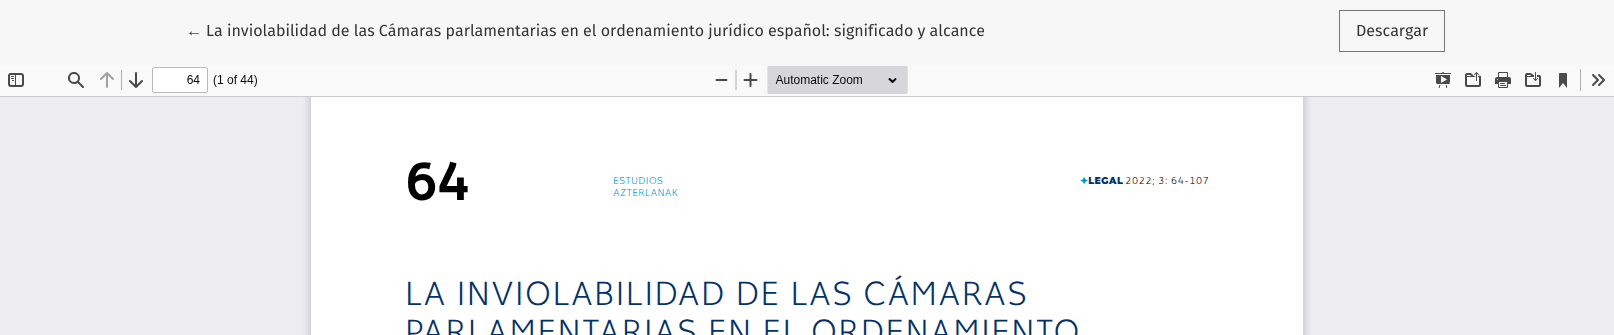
import math
import cairo

surface = cairo.ImageSurface(cairo.FORMAT_RGB24, 1614, 335)
c = cairo.Context(surface)
options = cairo.FontOptions()
options.set_hint_metrics(cairo.HINT_METRICS_OFF)
options.set_hint_style(cairo.HINT_STYLE_NONE)
c.set_font_options(options)
c.set_miter_limit(4)
def C(code):
 c.set_source_rgb(*(v / 255 for v in bytes.fromhex(code[-6:])))
def F(family, size, italic, bold):
 c.select_font_face(family, cairo.FONT_SLANT_ITALIC if italic else cairo.FONT_SLANT_NORMAL, cairo.FONT_WEIGHT_BOLD if bold else cairo.FONT_WEIGHT_NORMAL)
 c.set_font_size(size)
def T(x, y, s):
 c.move_to(x, y)
 c.show_text(s)
def I(path, x, y, w, h):
 c.save()
 c.set_source_surface(cairo.ImageSurface.create_from_png(path), x, y)
 c.rectangle(x, y, w, h)
 c.fill()
 c.restore()
C('f7f7f7')
c.paint()
F('Liberation Sans',16,0,0)
C('333333')
T(186,36,'←')
F('Fira Sans',16,0,0)
T(206,36,'La inviolabilidad de las Cámaras parlamentarias en el ordenamiento jurídico español: significado y alcance')
c.rectangle(1339.5,10.5,105,41)
C('757575')
c.set_line_width(1)
c.stroke()
C('333333')
T(1356,36,'Descargar')
I('1.png',0,66,1614,269)
surface.write_to_png('o.png')
